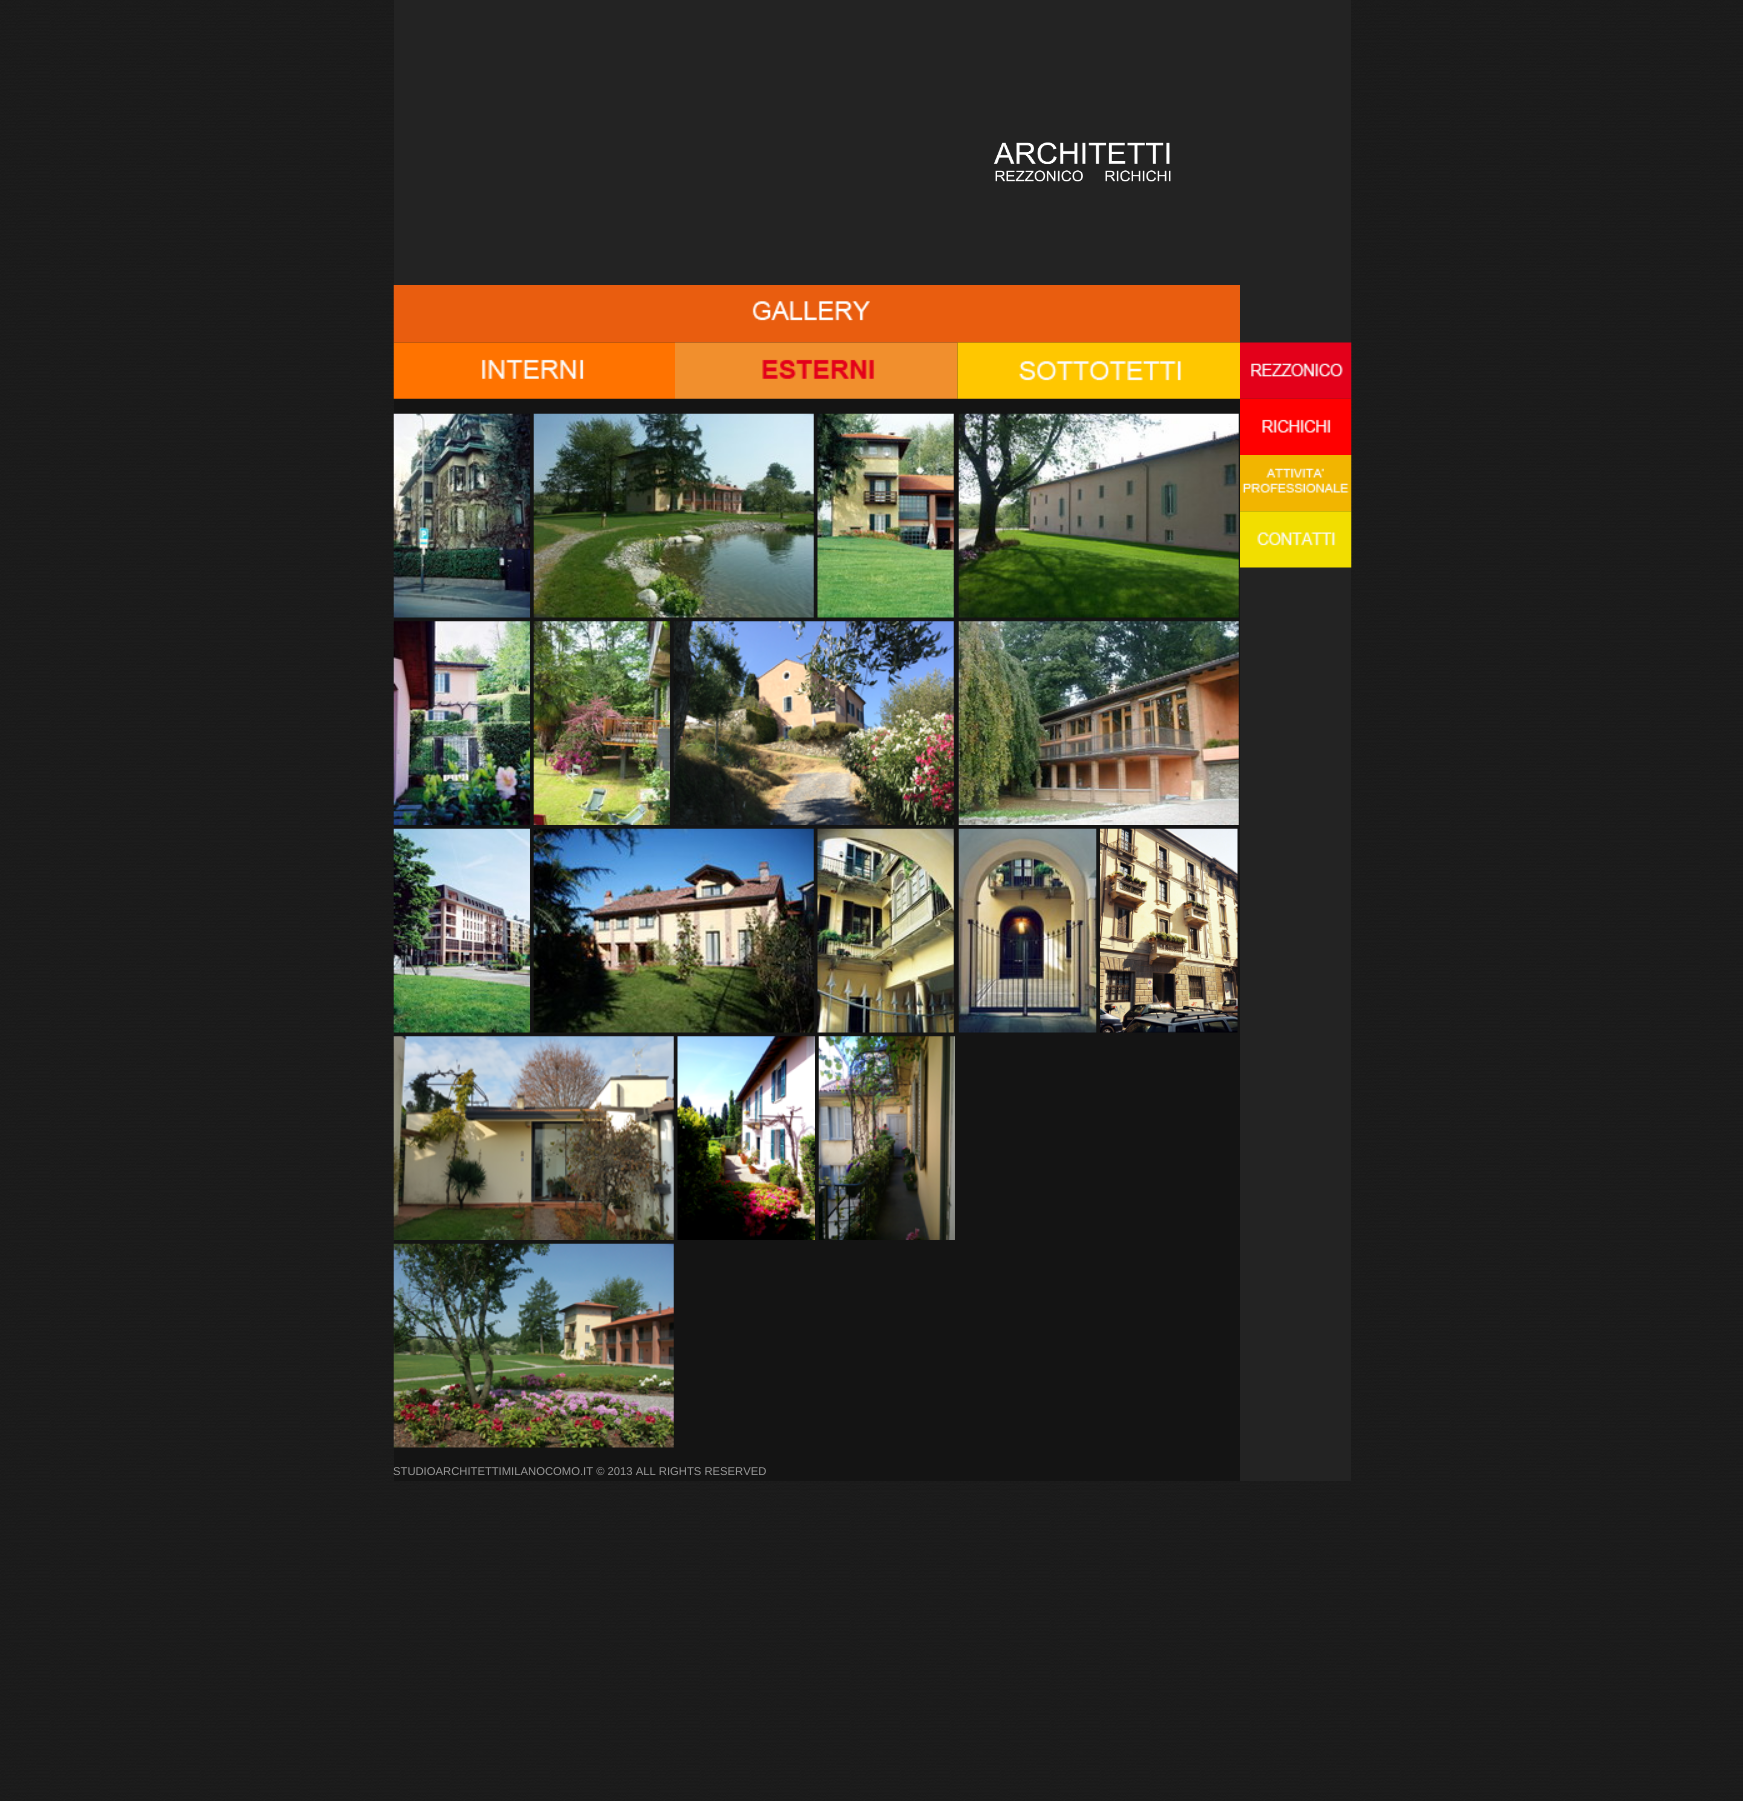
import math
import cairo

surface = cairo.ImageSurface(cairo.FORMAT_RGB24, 1743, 1801)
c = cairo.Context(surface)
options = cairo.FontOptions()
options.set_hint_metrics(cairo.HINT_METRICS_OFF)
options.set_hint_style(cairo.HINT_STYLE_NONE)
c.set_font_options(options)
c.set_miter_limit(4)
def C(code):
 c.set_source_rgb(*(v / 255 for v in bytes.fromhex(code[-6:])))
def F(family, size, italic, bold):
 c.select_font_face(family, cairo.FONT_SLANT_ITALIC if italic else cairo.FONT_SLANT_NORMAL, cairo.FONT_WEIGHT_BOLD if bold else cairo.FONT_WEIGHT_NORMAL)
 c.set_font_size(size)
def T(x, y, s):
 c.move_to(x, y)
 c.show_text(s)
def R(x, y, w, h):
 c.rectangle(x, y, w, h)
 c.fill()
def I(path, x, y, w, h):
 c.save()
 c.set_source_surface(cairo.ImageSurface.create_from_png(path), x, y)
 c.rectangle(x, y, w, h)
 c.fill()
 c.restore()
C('ffffff')
c.paint()
I('1.png',0,0,1743,1801)
C('232323')
R(394,0,957,343)
I('2.png',993,142,178,40)
I('3.png',393,285,847,58)
C('141414')
R(394,343,846,1138)
I('4.png',393,342,282,57)
I('5.png',675,342,283,57)
I('6.png',957,342,283,57)
I('7.png',393,413,137,205)
I('8.png',533,413,281,205)
I('9.png',817,413,137,205)
I('10.png',958,413,281,205)
I('11.png',393,621,137,204)
I('12.png',533,621,137,204)
I('13.png',673,621,281,204)
I('14.png',958,621,281,204)
I('15.png',393,828,137,205)
I('16.png',533,828,281,205)
I('17.png',817,828,137,205)
I('18.png',958,828,139,205)
I('19.png',1100,828,138,205)
I('20.png',393,1036,281,204)
I('21.png',677,1036,138,204)
I('22.png',818,1036,137,204)
I('23.png',393,1243,281,205)
F('Liberation Sans',11.25,0,0)
C('999999')
T(393,1475,'STUDIOARCHITETTIMILANOCOMO.IT © 2013 ALL RIGHTS RESERVED')
C('232323')
R(1240,398,111,1083)
I('24.png',1240,342,112,57)
I('25.png',1240,398,112,57)
I('26.png',1240,455,112,57)
I('27.png',1240,511,112,57)
surface.write_to_png('o.png')
